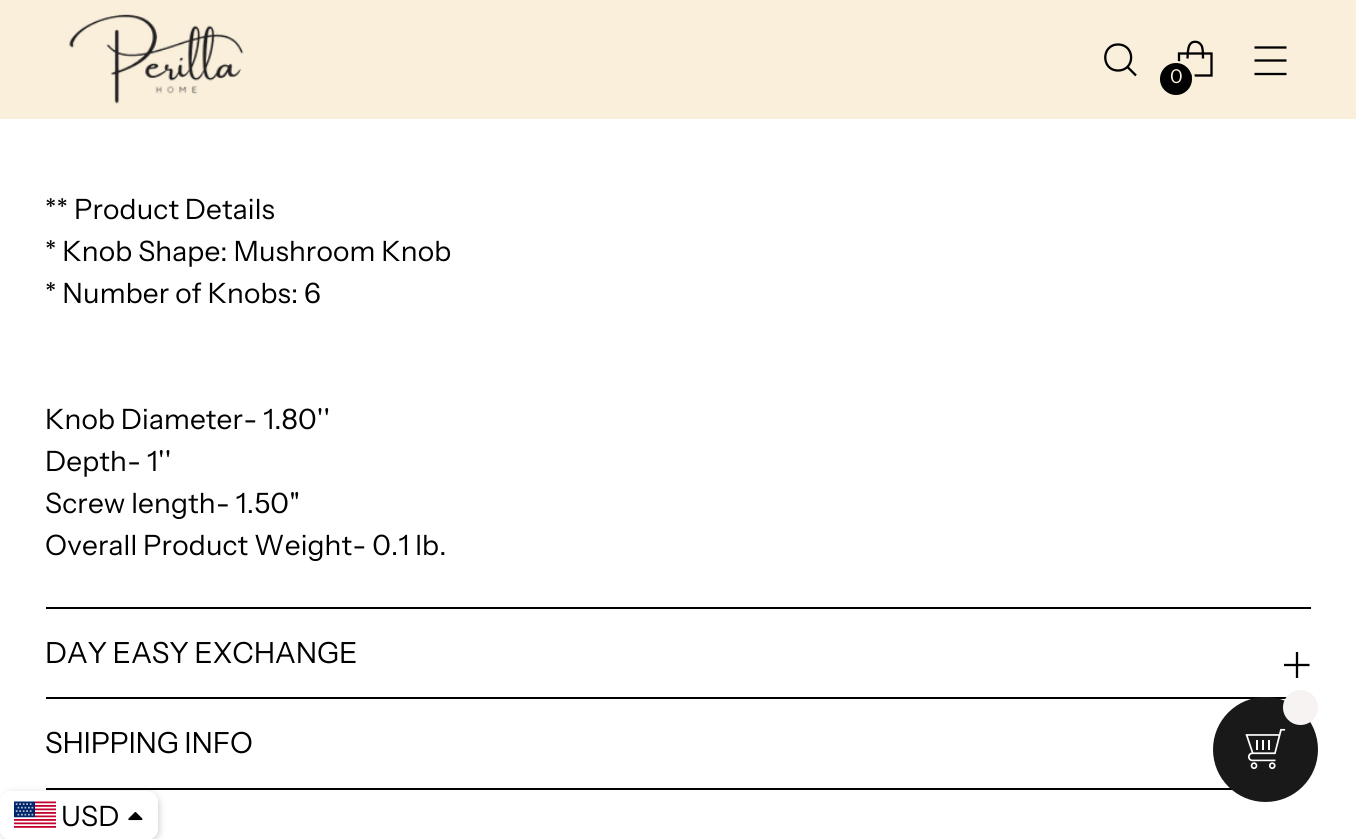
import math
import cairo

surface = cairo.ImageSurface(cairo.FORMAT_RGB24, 1356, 839)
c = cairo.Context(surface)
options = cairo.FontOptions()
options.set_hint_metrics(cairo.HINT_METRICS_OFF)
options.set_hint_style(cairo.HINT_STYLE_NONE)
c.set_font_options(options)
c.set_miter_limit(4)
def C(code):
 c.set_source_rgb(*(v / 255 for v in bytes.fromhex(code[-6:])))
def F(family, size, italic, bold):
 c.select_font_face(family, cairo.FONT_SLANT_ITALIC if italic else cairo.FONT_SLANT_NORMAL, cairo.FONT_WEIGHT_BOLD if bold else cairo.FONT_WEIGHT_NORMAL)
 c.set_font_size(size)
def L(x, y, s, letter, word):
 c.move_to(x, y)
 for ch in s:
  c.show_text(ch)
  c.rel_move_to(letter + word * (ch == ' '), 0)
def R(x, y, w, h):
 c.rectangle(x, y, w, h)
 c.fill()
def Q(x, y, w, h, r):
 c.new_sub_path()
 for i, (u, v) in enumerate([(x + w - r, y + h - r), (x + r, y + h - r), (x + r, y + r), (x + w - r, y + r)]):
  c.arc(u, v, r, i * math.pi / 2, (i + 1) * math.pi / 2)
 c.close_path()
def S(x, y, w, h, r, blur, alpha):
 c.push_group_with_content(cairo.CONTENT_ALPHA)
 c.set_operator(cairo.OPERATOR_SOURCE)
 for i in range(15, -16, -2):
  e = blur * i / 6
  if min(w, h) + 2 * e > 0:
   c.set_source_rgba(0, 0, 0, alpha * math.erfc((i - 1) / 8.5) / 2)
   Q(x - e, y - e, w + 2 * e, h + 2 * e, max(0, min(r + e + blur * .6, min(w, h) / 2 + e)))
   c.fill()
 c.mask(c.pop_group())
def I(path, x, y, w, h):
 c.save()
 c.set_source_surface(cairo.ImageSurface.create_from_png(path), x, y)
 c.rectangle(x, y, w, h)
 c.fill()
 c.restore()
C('ffffff')
c.paint()
C('f9efdb')
R(0,0,1356,119)
I('1.png',69,14,175,90)
c.new_path()
c.move_to(1118,70.5)
c.curve_to(1135.5,70.5,1135.5,44.5,1118,44.5)
c.curve_to(1101,44.5,1101,70.5,1118,70.5)
c.close_path()
C('000000')
c.set_line_width(2.3)
c.set_line_cap(cairo.LINE_CAP_ROUND)
c.stroke()
c.new_path()
c.move_to(1127.5,67)
c.line_to(1136,75.5)
c.set_line_cap(cairo.LINE_CAP_BUTT)
c.stroke()
c.new_path()
c.move_to(1203,58.5)
c.curve_to(1203,54.5,1203,50.5,1202,46.5)
c.curve_to(1201,44.5,1199.5,42.5,1197,42)
c.curve_to(1187,40,1188,52.5,1187.5,58.5)
c.set_line_join(cairo.LINE_JOIN_BEVEL)
c.stroke()
c.new_path()
c.move_to(1211.5,75.5)
c.line_to(1211.5,53.5)
c.line_to(1179,53.5)
c.line_to(1179,75.5)
c.close_path()
c.set_line_join(cairo.LINE_JOIN_MITER)
c.stroke()
Q(1160.5,62.5,33,34,16.5)
C('f9efdb')
c.set_line_width(3)
c.stroke()
C('000000')
c.arc(1176,79,16,0,2 * math.pi)
c.fill()
F('Instrument Sans',19,0,0)
C('f9efdb')
L(1170,83,'0',.15,0)
c.new_path()
c.move_to(1254.5,60.5)
c.line_to(1286.5,60.5)
c.move_to(1254.5,47.5)
c.line_to(1286.5,47.5)
c.move_to(1254.5,74)
c.line_to(1286.5,74)
C('000000')
c.set_line_width(2.3)
c.stroke()
R(46,607,1265,2)
F('Instrument Sans',28,0,0)
L(45,219,'** Product Details',.15,0)
L(45,261,'* Knob Shape: Mushroom Knob',.15,0)
L(45,303,'* Number of Knobs: 6',.15,0)
L(45,429,'Knob Diameter- 1.80\'\'',.15,0)
L(45,471,'Depth- 1\'\'',.15,0)
L(45,513,'Screw length- 1.50"',.15,0)
L(45,555,'Overall Product Weight- 0.1 lb.',.15,0)
R(46,697,1241,2)
F('Instrument Sans',29.1,0,0)
L(45,663,'DAY EASY EXCHANGE',-.25,0)
c.new_path()
c.move_to(1284,665)
c.line_to(1297,665)
c.move_to(1309.5,665)
c.line_to(1297,665)
c.move_to(1297,665)
c.line_to(1297,652)
c.move_to(1297,665)
c.line_to(1297,678)
c.stroke()
R(46,788,1187,2)
L(45,753,'SHIPPING INFO',-.25,0)
C('191919')
c.new_path()
c.arc(1265.5,749.5,52.5,0,2 * math.pi)
c.fill()
C('f7f3f3')
c.arc(1300.5,707.5,17.5,0,2 * math.pi)
c.fill()
I('2.png',1245,728,41,42)
C('000000')
S(2,793,157,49,11,3.5,.2)
C('ffffff')
Q(0,791,158,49,11)
c.fill()
I('3.png',14,801,42,27)
F('Instrument Sans',28,0,0)
C('000000')
L(61,826,'USD',.15,0)
I('4.png',128,812,15,9)
surface.write_to_png('o.png')
